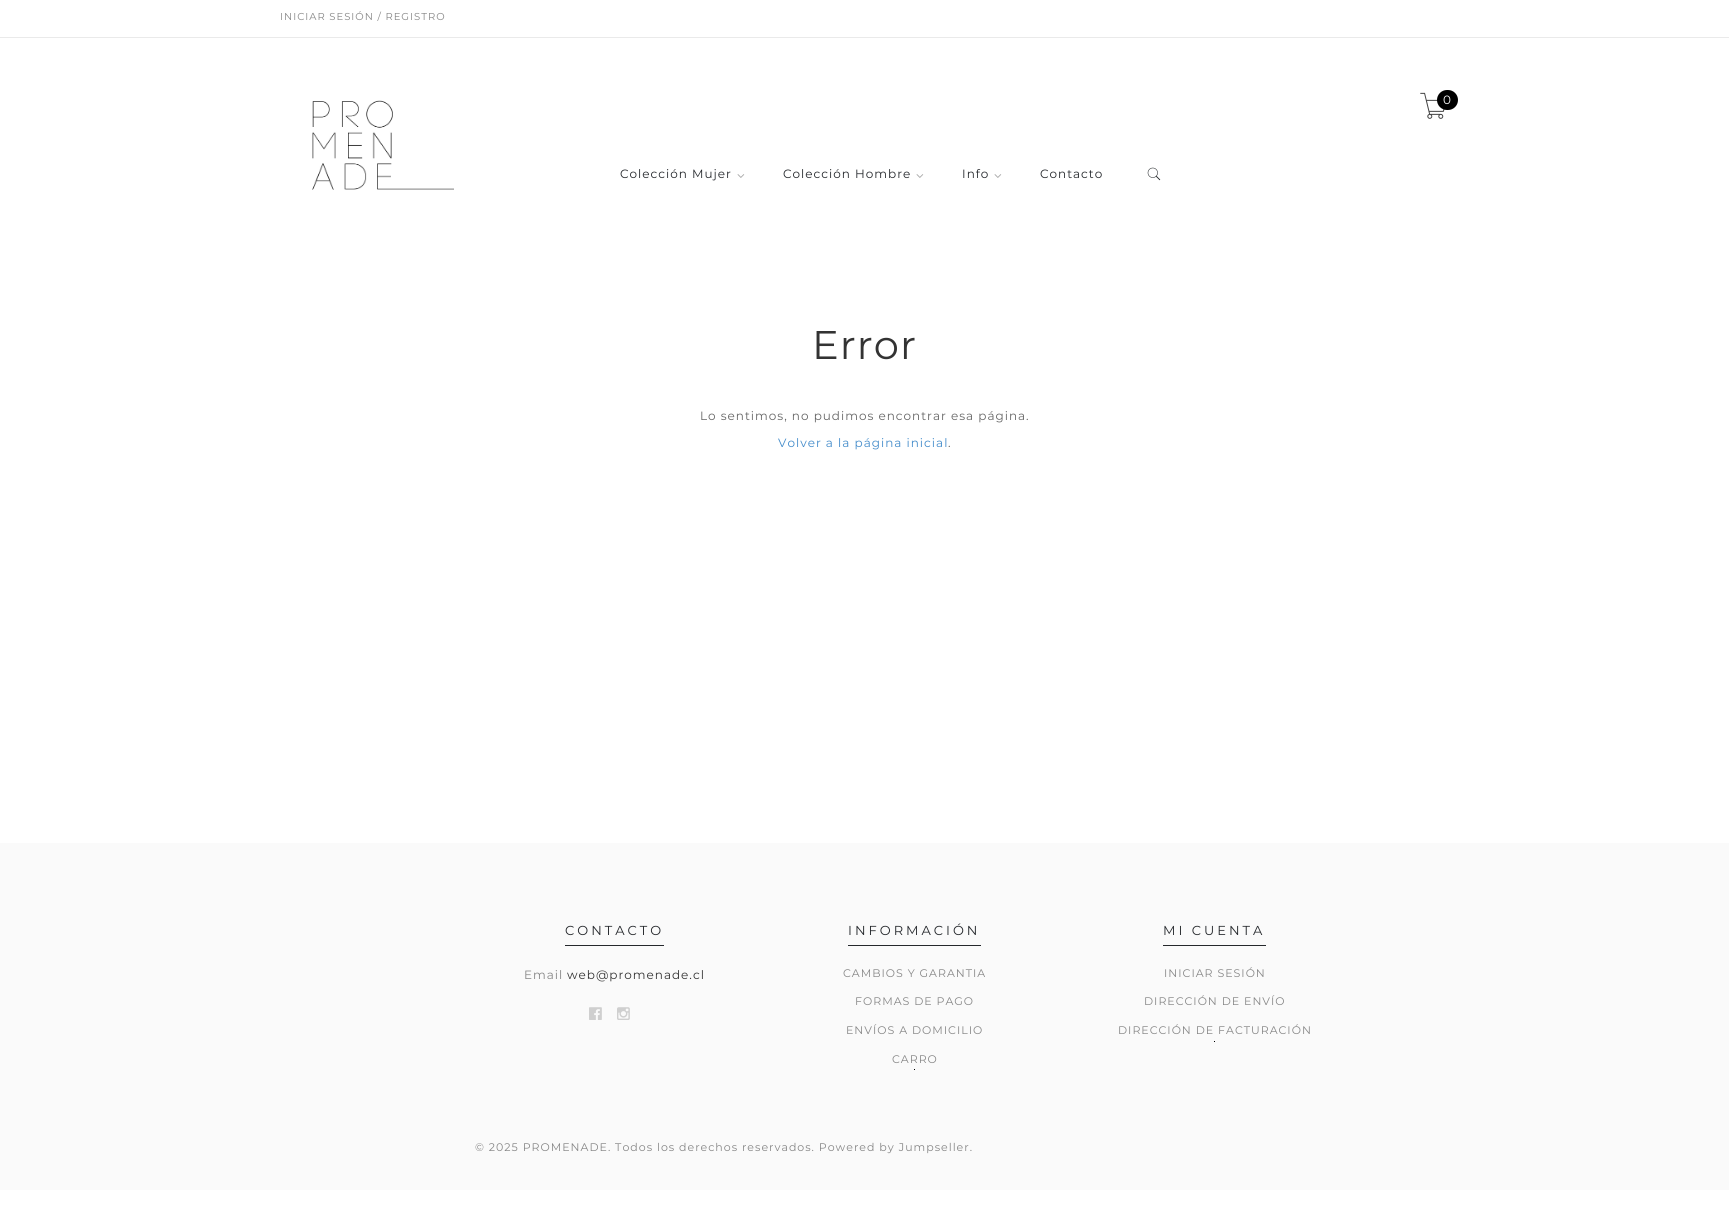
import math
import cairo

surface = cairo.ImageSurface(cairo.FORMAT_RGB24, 1729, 1220)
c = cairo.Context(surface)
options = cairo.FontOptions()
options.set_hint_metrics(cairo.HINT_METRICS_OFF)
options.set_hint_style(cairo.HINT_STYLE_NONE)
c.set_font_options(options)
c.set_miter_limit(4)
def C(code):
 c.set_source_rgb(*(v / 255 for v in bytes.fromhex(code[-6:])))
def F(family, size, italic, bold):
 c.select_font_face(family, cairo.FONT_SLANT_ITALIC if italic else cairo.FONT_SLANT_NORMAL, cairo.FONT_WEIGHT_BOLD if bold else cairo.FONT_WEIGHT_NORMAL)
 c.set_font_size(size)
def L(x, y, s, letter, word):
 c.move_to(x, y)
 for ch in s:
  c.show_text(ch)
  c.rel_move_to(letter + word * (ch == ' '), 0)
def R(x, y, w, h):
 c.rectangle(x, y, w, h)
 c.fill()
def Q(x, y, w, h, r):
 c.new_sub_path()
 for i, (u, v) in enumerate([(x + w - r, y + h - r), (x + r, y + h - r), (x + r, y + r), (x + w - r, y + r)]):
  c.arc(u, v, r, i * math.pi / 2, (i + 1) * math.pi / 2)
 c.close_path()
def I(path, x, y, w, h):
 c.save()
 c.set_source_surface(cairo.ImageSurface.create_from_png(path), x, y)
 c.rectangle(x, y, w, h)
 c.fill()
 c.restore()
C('ffffff')
c.paint()
F('Montserrat Thin',10,0,0)
C('868686')
L(280,20,'INICIAR SESIÓN / REGISTRO',1,0)
C('eaeaea')
R(0,37,1729,1)
I('1.png',312,100,142,90)
F('Montserrat Thin',12,0,0)
C('25282c')
L(620,178,'Colección Mujer',1,0)
I('2.png',737,174,8,4)
L(783,178,'Colección Hombre',1,0)
I('2.png',916,174,8,4)
L(962,178,'Info',1,0)
I('2.png',994,174,8,4)
L(1040,178,'Contacto',1,0)
I('3.png',1147,167,14,14)
I('4.png',1420,92,25,27)
C('000000')
Q(1437,90,21,20,10)
c.fill()
C('ffffff')
L(1443,104,'0',1,0)
F('Montserrat Thin',40,0,0)
C('333333')
L(812,359,'Error',1,0)
F('Montserrat Thin',12,0,0)
C('666666')
L(700,420,'Lo sentimos, no pudimos encontrar esa página.',1,0)
C('428bca')
L(778,447,'Volver a la página inicial',1,0)
C('666666')
L(948,447,'.',1,0)
C('fafafa')
R(0,843,1729,347)
C('25282c')
R(565,945,99,1)
F('Montserrat Thin',13,0,0)
L(565,935,'CONTACTO',3,0)
F('Montserrat Thin',12,0,0)
C('868686')
L(524,979,'Email',1,0)
C('333333')
L(567,979,'web@promenade.cl',1,0)
I('5.png',589,1007,13,13)
I('6.png',617,1007,13,13)
C('25282c')
R(848,945,133,1)
F('Montserrat Thin',13,0,0)
L(848,935,'INFORMACIÓN',3,0)
F('Montserrat Thin',11,0,0)
C('868686')
L(843,977,'CAMBIOS Y GARANTIA',1,0)
L(855,1005,'FORMAS DE PAGO',1,0)
L(846,1034,'ENVÍOS A DOMICILIO',1,0)
L(892,1063,'CARRO',1,0)
C('000000')
R(914,1069,1,1)
C('25282c')
R(1163,945,103,1)
F('Montserrat Thin',13,0,0)
L(1163,935,'MI CUENTA',3,0)
F('Montserrat Thin',11,0,0)
C('868686')
L(1164,977,'INICIAR SESIÓN',1,0)
L(1144,1005,'DIRECCIÓN DE ENVÍO',1,0)
L(1118,1034,'DIRECCIÓN DE FACTURACIÓN',1,0)
C('000000')
R(1214,1041,1,1)
C('868686')
L(475,1151,'© 2025 PROMENADE. Todos los derechos reservados. Powered by Jumpseller.',1,0)
surface.write_to_png('o.png')
